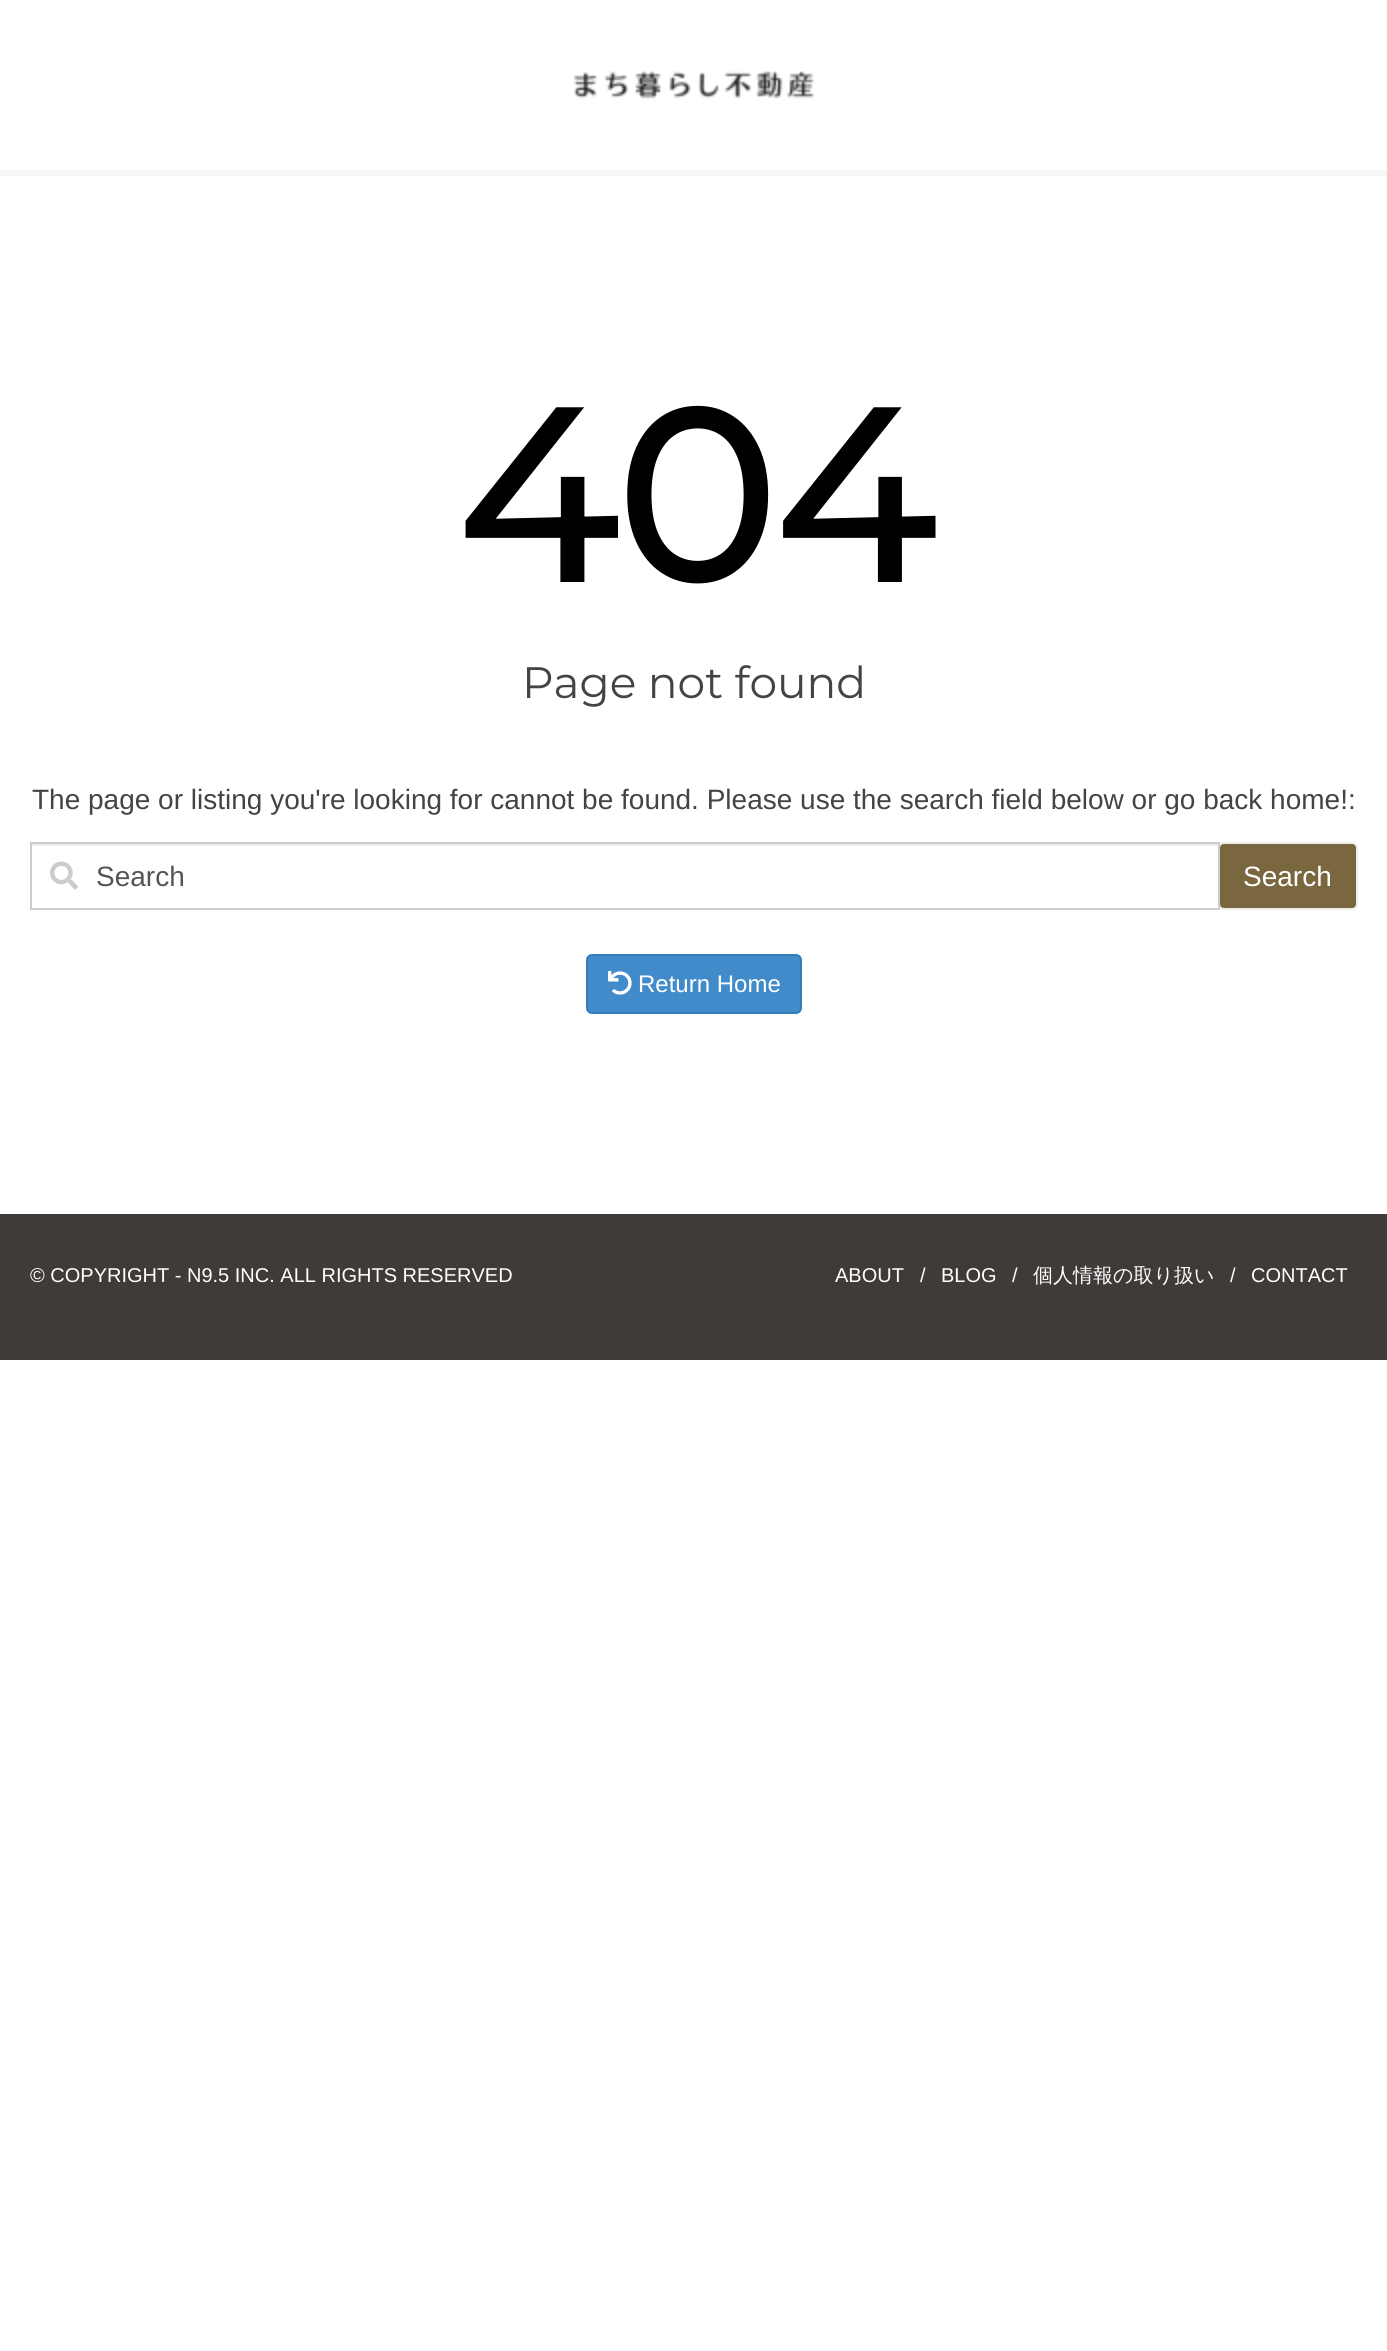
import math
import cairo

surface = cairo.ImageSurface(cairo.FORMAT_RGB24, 1387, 2351)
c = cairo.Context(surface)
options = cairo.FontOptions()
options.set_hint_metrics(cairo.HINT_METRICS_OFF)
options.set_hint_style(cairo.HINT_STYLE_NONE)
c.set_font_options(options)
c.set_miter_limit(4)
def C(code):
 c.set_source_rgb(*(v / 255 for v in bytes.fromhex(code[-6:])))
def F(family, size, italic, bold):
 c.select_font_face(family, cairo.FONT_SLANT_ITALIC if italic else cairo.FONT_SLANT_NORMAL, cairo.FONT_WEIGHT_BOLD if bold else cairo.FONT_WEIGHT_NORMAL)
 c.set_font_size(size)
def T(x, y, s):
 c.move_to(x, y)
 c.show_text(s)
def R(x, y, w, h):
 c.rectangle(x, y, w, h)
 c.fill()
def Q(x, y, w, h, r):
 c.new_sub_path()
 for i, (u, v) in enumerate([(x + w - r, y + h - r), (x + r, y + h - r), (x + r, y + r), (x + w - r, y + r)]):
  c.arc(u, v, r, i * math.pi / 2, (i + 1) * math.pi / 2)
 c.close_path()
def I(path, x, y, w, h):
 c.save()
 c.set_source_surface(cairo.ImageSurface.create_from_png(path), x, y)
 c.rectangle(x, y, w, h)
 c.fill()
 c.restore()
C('ffffff')
c.paint()
C('f6f6f6')
R(0,170,1387,6)
I('1.png',574,71,240,28)
F('Montserrat',240,0,1)
C('000000')
T(456,582,'404')
F('Montserrat Thin',44,0,0)
C('444444')
T(522,698,'Page not found')
F('Liberation Sans',28,0,0)
T(32,809,'The page or listing you\'re looking for cannot be found. Please use the search field below or go back home!:')
C('ececec')
R(32,844,1186,2)
C('7b673f')
Q(1219,843,138,66,5)
c.fill_preserve()
C('f0efe9')
c.stroke()
c.rectangle(31,843,1188,66)
C('cccccc')
c.stroke()
I('2.png',50,861,28,29)
C('555555')
T(96,886,'Search')
C('ffffff')
T(1243,886,'Search')
C('428bca')
Q(587,955,214,58,5)
c.fill_preserve()
C('357ebd')
c.stroke()
I('3.png',608,971,24,24)
F('Liberation Sans',24,0,0)
C('ffffff')
T(638,992,'Return Home')
C('403a39')
R(0,1214,1387,146)
F('Liberation Sans',20,0,0)
C('ffffff')
T(30,1282,'© COPYRIGHT - N9.5 INC. ALL RIGHTS RESERVED')
T(835,1282,'ABOUT')
T(920,1282,'/')
T(941,1282,'BLOG')
T(1012,1282,'/')
F('WenQuanYi Zen Hei Medium',20,0,0)
T(1033,1282,'個人情報の取り扱い')
F('Liberation Sans',20,0,0)
T(1230,1282,'/')
T(1251,1282,'CONTACT')
surface.write_to_png('o.png')
